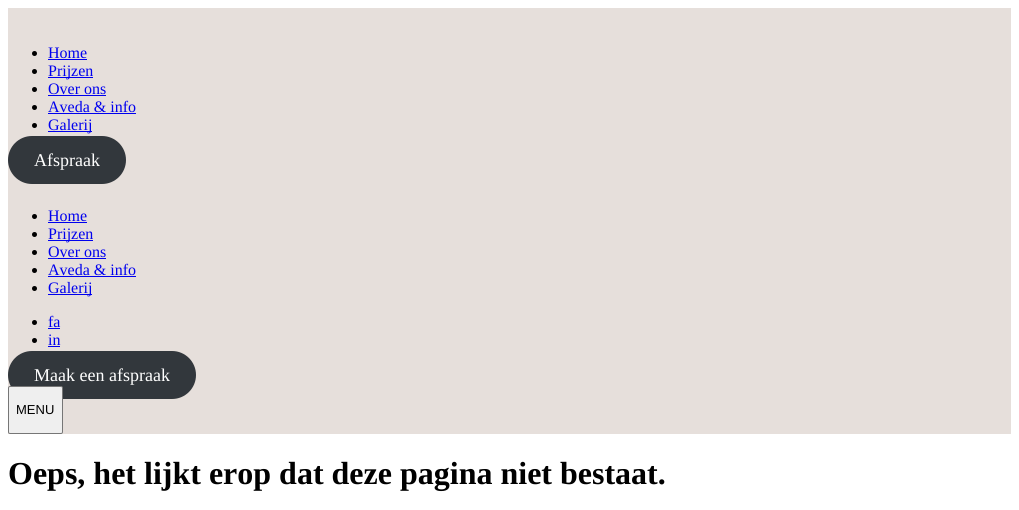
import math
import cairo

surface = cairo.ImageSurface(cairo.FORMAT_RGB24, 1019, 510)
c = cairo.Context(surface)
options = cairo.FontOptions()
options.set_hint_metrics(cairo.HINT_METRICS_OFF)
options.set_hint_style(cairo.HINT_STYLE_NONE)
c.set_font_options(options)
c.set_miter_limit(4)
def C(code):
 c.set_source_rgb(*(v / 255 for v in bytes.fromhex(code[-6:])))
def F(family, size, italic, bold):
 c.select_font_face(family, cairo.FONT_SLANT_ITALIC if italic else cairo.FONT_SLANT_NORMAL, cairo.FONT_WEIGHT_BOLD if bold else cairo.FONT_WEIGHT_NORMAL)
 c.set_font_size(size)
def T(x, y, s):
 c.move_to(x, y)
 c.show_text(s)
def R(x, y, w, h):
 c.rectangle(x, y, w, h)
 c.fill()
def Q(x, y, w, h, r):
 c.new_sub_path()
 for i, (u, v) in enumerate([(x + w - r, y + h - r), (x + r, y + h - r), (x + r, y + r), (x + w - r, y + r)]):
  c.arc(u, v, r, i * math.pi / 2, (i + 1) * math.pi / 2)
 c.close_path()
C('ffffff')
c.paint()
C('e6dfdb')
R(8,8,1003,426)
C('000000')
c.arc(34.5,53.5,2.5,0,2 * math.pi)
c.fill()
F('Liberation Serif',16,0,0)
C('0000ee')
T(48,58,'Home')
R(48,59,39,1)
C('000000')
c.new_path()
c.arc(34.5,71.5,2.5,0,2 * math.pi)
c.fill()
C('0000ee')
R(48,77,45,1)
T(48,76,'Prijzen')
C('000000')
c.new_path()
c.arc(34.5,89.5,2.5,0,2 * math.pi)
c.fill()
C('0000ee')
T(48,94,'Over ons')
R(48,95,58,1)
C('000000')
c.new_path()
c.arc(34.5,107.5,2.5,0,2 * math.pi)
c.fill()
C('0000ee')
T(48,112,'Aveda & info')
R(48,113,88,1)
C('000000')
c.new_path()
c.arc(34.5,125.5,2.5,0,2 * math.pi)
c.fill()
C('0000ee')
R(48,131,44,1)
T(48,130,'Galerij')
C('32373c')
Q(8,136,118,48,24)
c.fill()
F('Liberation Serif',18,0,0)
C('ffffff')
T(34,166,'Afspraak')
C('000000')
c.new_path()
c.arc(34.5,216.5,2.5,0,2 * math.pi)
c.fill()
F('Liberation Serif',16,0,0)
C('0000ee')
T(48,221,'Home')
R(48,222,39,1)
C('000000')
c.new_path()
c.arc(34.5,234.5,2.5,0,2 * math.pi)
c.fill()
C('0000ee')
R(48,240,45,1)
T(48,239,'Prijzen')
C('000000')
c.new_path()
c.arc(34.5,252.5,2.5,0,2 * math.pi)
c.fill()
C('0000ee')
T(48,257,'Over ons')
R(48,258,58,1)
C('000000')
c.new_path()
c.arc(34.5,270.5,2.5,0,2 * math.pi)
c.fill()
C('0000ee')
T(48,275,'Aveda & info')
R(48,276,88,1)
C('000000')
c.new_path()
c.arc(34.5,288.5,2.5,0,2 * math.pi)
c.fill()
C('0000ee')
R(48,294,44,1)
T(48,293,'Galerij')
C('000000')
c.new_path()
c.arc(34.5,322.5,2.5,0,2 * math.pi)
c.fill()
C('0000ee')
T(48,327,'fa')
R(48,328,12,1)
C('000000')
c.new_path()
c.arc(34.5,340.5,2.5,0,2 * math.pi)
c.fill()
C('0000ee')
T(48,345,'in')
R(48,346,12,1)
C('32373c')
Q(8,351,188,48,24)
c.fill()
F('Liberation Serif',18,0,0)
C('ffffff')
T(34,381,'Maak een afspraak')
C('efefef')
Q(8.5,386.5,54,47,1.5)
c.fill_preserve()
C('767676')
c.set_line_width(1)
c.stroke()
F('Liberation Sans',13,0,0)
C('000000')
T(16,414,'MENU')
F('Liberation Serif',32,0,1)
T(8,484,'Oeps, het lijkt erop dat deze pagina niet bestaat.')
surface.write_to_png('o.png')
